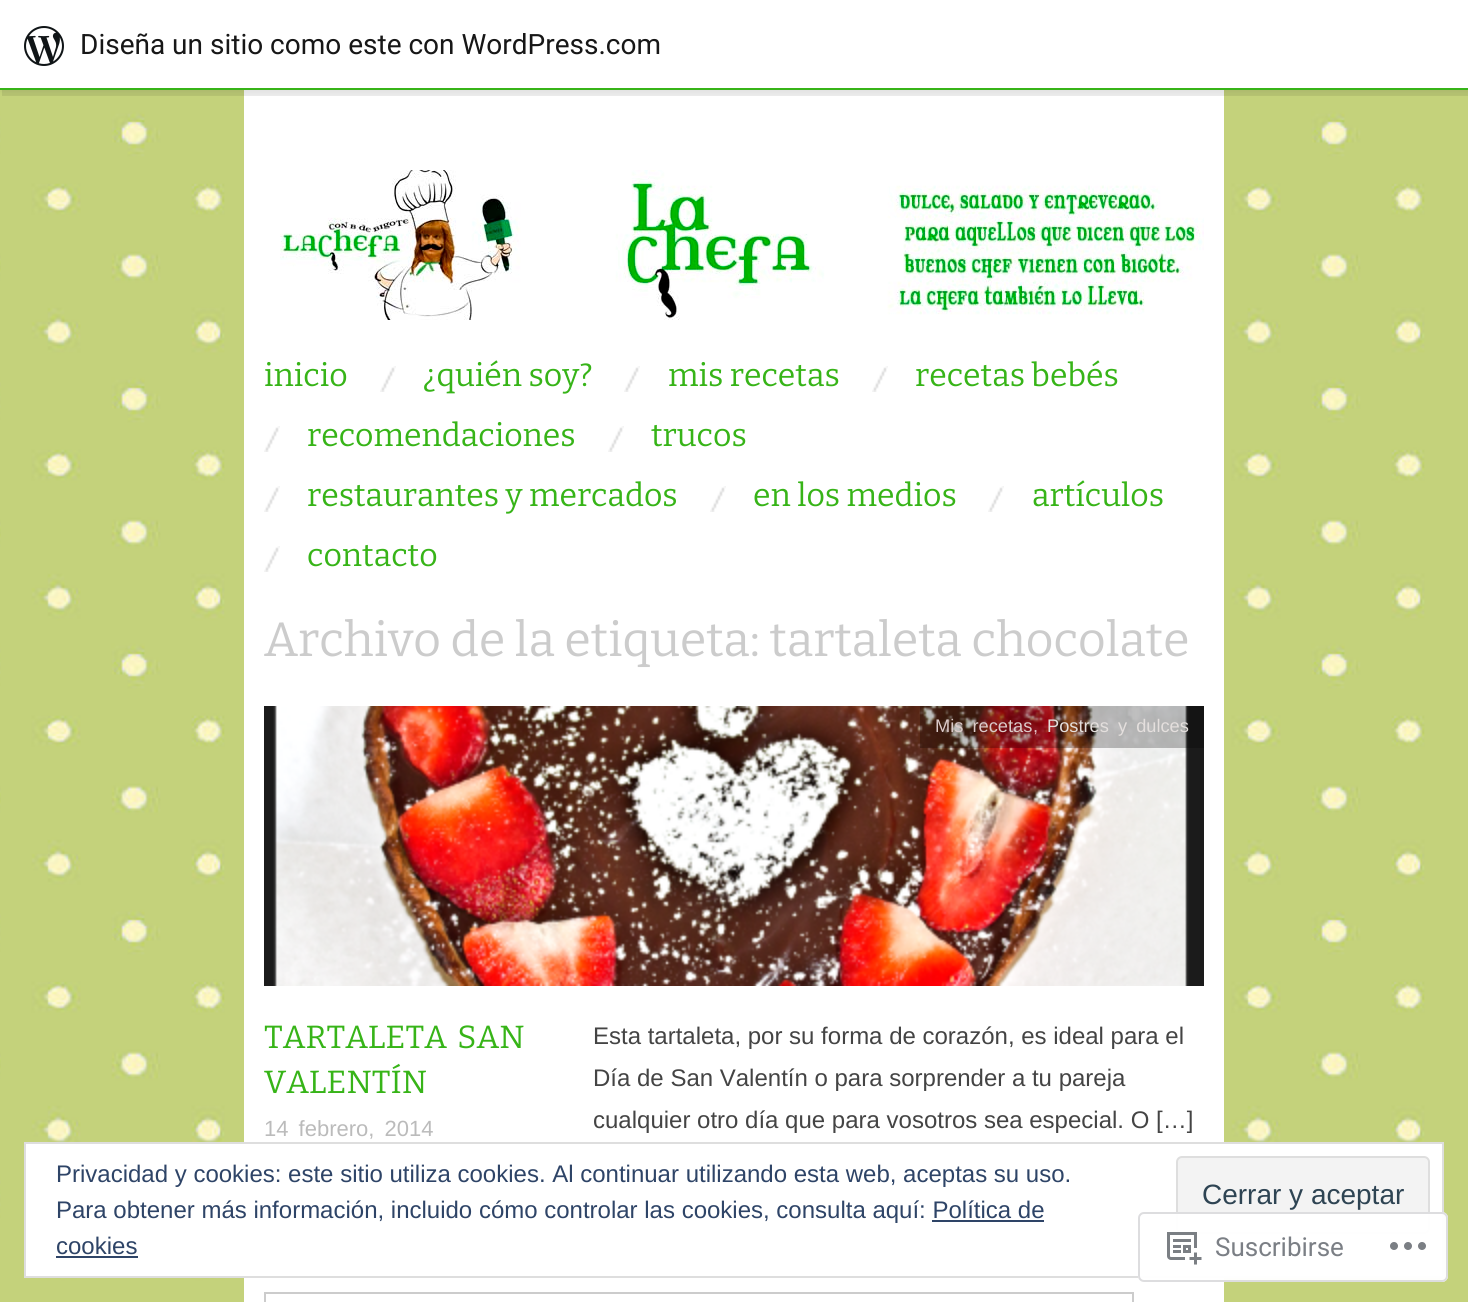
import math
import cairo

surface = cairo.ImageSurface(cairo.FORMAT_RGB24, 1468, 1302)
c = cairo.Context(surface)
options = cairo.FontOptions()
options.set_hint_metrics(cairo.HINT_METRICS_OFF)
options.set_hint_style(cairo.HINT_STYLE_NONE)
c.set_font_options(options)
c.set_miter_limit(4)
def C(code):
 c.set_source_rgb(*(v / 255 for v in bytes.fromhex(code[-6:])))
def F(family, size, italic, bold):
 c.select_font_face(family, cairo.FONT_SLANT_ITALIC if italic else cairo.FONT_SLANT_NORMAL, cairo.FONT_WEIGHT_BOLD if bold else cairo.FONT_WEIGHT_NORMAL)
 c.set_font_size(size)
def T(x, y, s):
 c.move_to(x, y)
 c.show_text(s)
def L(x, y, s, letter, word):
 c.move_to(x, y)
 for ch in s:
  c.show_text(ch)
  c.rel_move_to(letter + word * (ch == ' '), 0)
def R(x, y, w, h):
 c.rectangle(x, y, w, h)
 c.fill()
def Q(x, y, w, h, r):
 c.new_sub_path()
 for i, (u, v) in enumerate([(x + w - r, y + h - r), (x + r, y + h - r), (x + r, y + r), (x + w - r, y + r)]):
  c.arc(u, v, r, i * math.pi / 2, (i + 1) * math.pi / 2)
 c.close_path()
def S(x, y, w, h, r, blur, alpha):
 c.push_group_with_content(cairo.CONTENT_ALPHA)
 c.set_operator(cairo.OPERATOR_SOURCE)
 for i in range(15, -16, -2):
  e = blur * i / 6
  if min(w, h) + 2 * e > 0:
   c.set_source_rgba(0, 0, 0, alpha * math.erfc((i - 1) / 8.5) / 2)
   Q(x - e, y - e, w + 2 * e, h + 2 * e, max(0, min(r + e + blur * .6, min(w, h) / 2 + e)))
   c.fill()
 c.mask(c.pop_group())
def I(path, x, y, w, h):
 c.save()
 c.set_source_surface(cairo.ImageSurface.create_from_png(path), x, y)
 c.rectangle(x, y, w, h)
 c.fill()
 c.restore()
C('ffffff')
c.paint()
I('1.png',0,90,1468,1212)
C('ffffff')
R(244,90,980,1212)
C('000000')
S(0,2,1468,90,0,2,.05)
c.set_source_rgba(0,0,0,0.08)
c.new_path()
c.move_to(2,90)
c.line_to(2,96)
c.line_to(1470,96)
c.line_to(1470,6)
c.line_to(1468,6)
c.line_to(1468,90)
c.close_path()
c.fill()
C('ffffff')
R(0,0,1468,88)
I('2.png',24,26,40,40)
F('Roboto',28,0,0)
C('171717')
T(80,54,'Diseña un sitio como este con WordPress.com')
C('37b418')
R(0,88,1468,2)
I('3.png',280,170,924,150)
F('Bitter Thin',32,0,0)
T(264,386,'inicio')
I('4.png',380,366,16,26)
T(423,386,'¿quién soy?')
I('4.png',624,366,16,26)
T(668,386,'mis recetas')
I('4.png',872,366,16,26)
T(915,386,'recetas bebés')
I('4.png',264,426,16,26)
T(307,446,'recomendaciones')
I('4.png',608,426,16,26)
T(651,446,'trucos')
I('4.png',264,486,16,26)
T(307,506,'restaurantes y mercados')
I('4.png',710,486,16,26)
T(753,506,'en los medios')
I('4.png',988,486,16,26)
T(1032,506,'artículos')
I('4.png',264,546,16,26)
T(307,566,'contacto')
F('Bitter Thin',48,0,0)
C('cccccc')
T(264,656,'Archivo de la etiqueta: tartaleta chocolate')
I('5.png',264,706,940,280)
c.set_source_rgba(0,0,0,0.25)
R(920,706,284,42)
F('Liberation Sans',18.25,0,0)
C('dbcac9')
L(935,732,'Mis recetas',0,4)
C('e2c4c7')
T(1033,732,',')
C('e4dfdd')
L(1047,732,'Postres y dulces',0,4)
F('Bitter Thin',32,0,0)
C('37b418')
L(264,1048,'TARTALETA SAN',0,4)
T(264,1093,'VALENTÍN')
F('Liberation Sans',22,0,0)
C('bbbbbb')
L(264,1136,'14 febrero, 2014',0,4)
F('Liberation Sans',24,0,0)
C('444444')
T(593,1044,'Esta tartaleta, por su forma de corazón, es ideal para el')
T(593,1086,'Día de San Valentín o para sorprender a tu pareja')
T(593,1128,'cualquier otro día que para vosotros sea especial. O […]')
c.rectangle(265,1293,868,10)
C('cccccc')
c.stroke()
C('ffffff')
c.rectangle(25,1143,1418,134)
c.fill_preserve()
C('dedede')
c.stroke()
C('2e4467')
T(56,1182,'Privacidad y cookies: este sitio utiliza cookies. Al continuar utilizando esta web, aceptas su uso.')
T(56,1218,'Para obtener más información, incluido cómo controlar las cookies, consulta aquí: Política de')
C('f3f3f3')
Q(1177,1157,252,76,5)
c.fill_preserve()
C('dedede')
c.stroke()
F('Liberation Sans',28,0,0)
C('2e4453')
T(1202,1204,'Cerrar y aceptar')
F('Liberation Sans',24,0,0)
C('2e4467')
T(56,1254,'cookies')
R(932,1220,112,2)
R(56,1256,82,2)
c.set_source_rgba(1,1,1,0.98)
Q(1138,1212,310,70,6)
c.fill()
Q(1139,1213,308,68,5)
c.set_source_rgba(0.863,0.863,0.871,0.98)
c.stroke()
I('6.png',1167,1232,35,33)
F('Roboto',26,0,0)
C('7b7f85')
T(1215,1256,'Suscribirse')
I('7.png',1390,1242,36,8)
surface.write_to_png('o.png')
